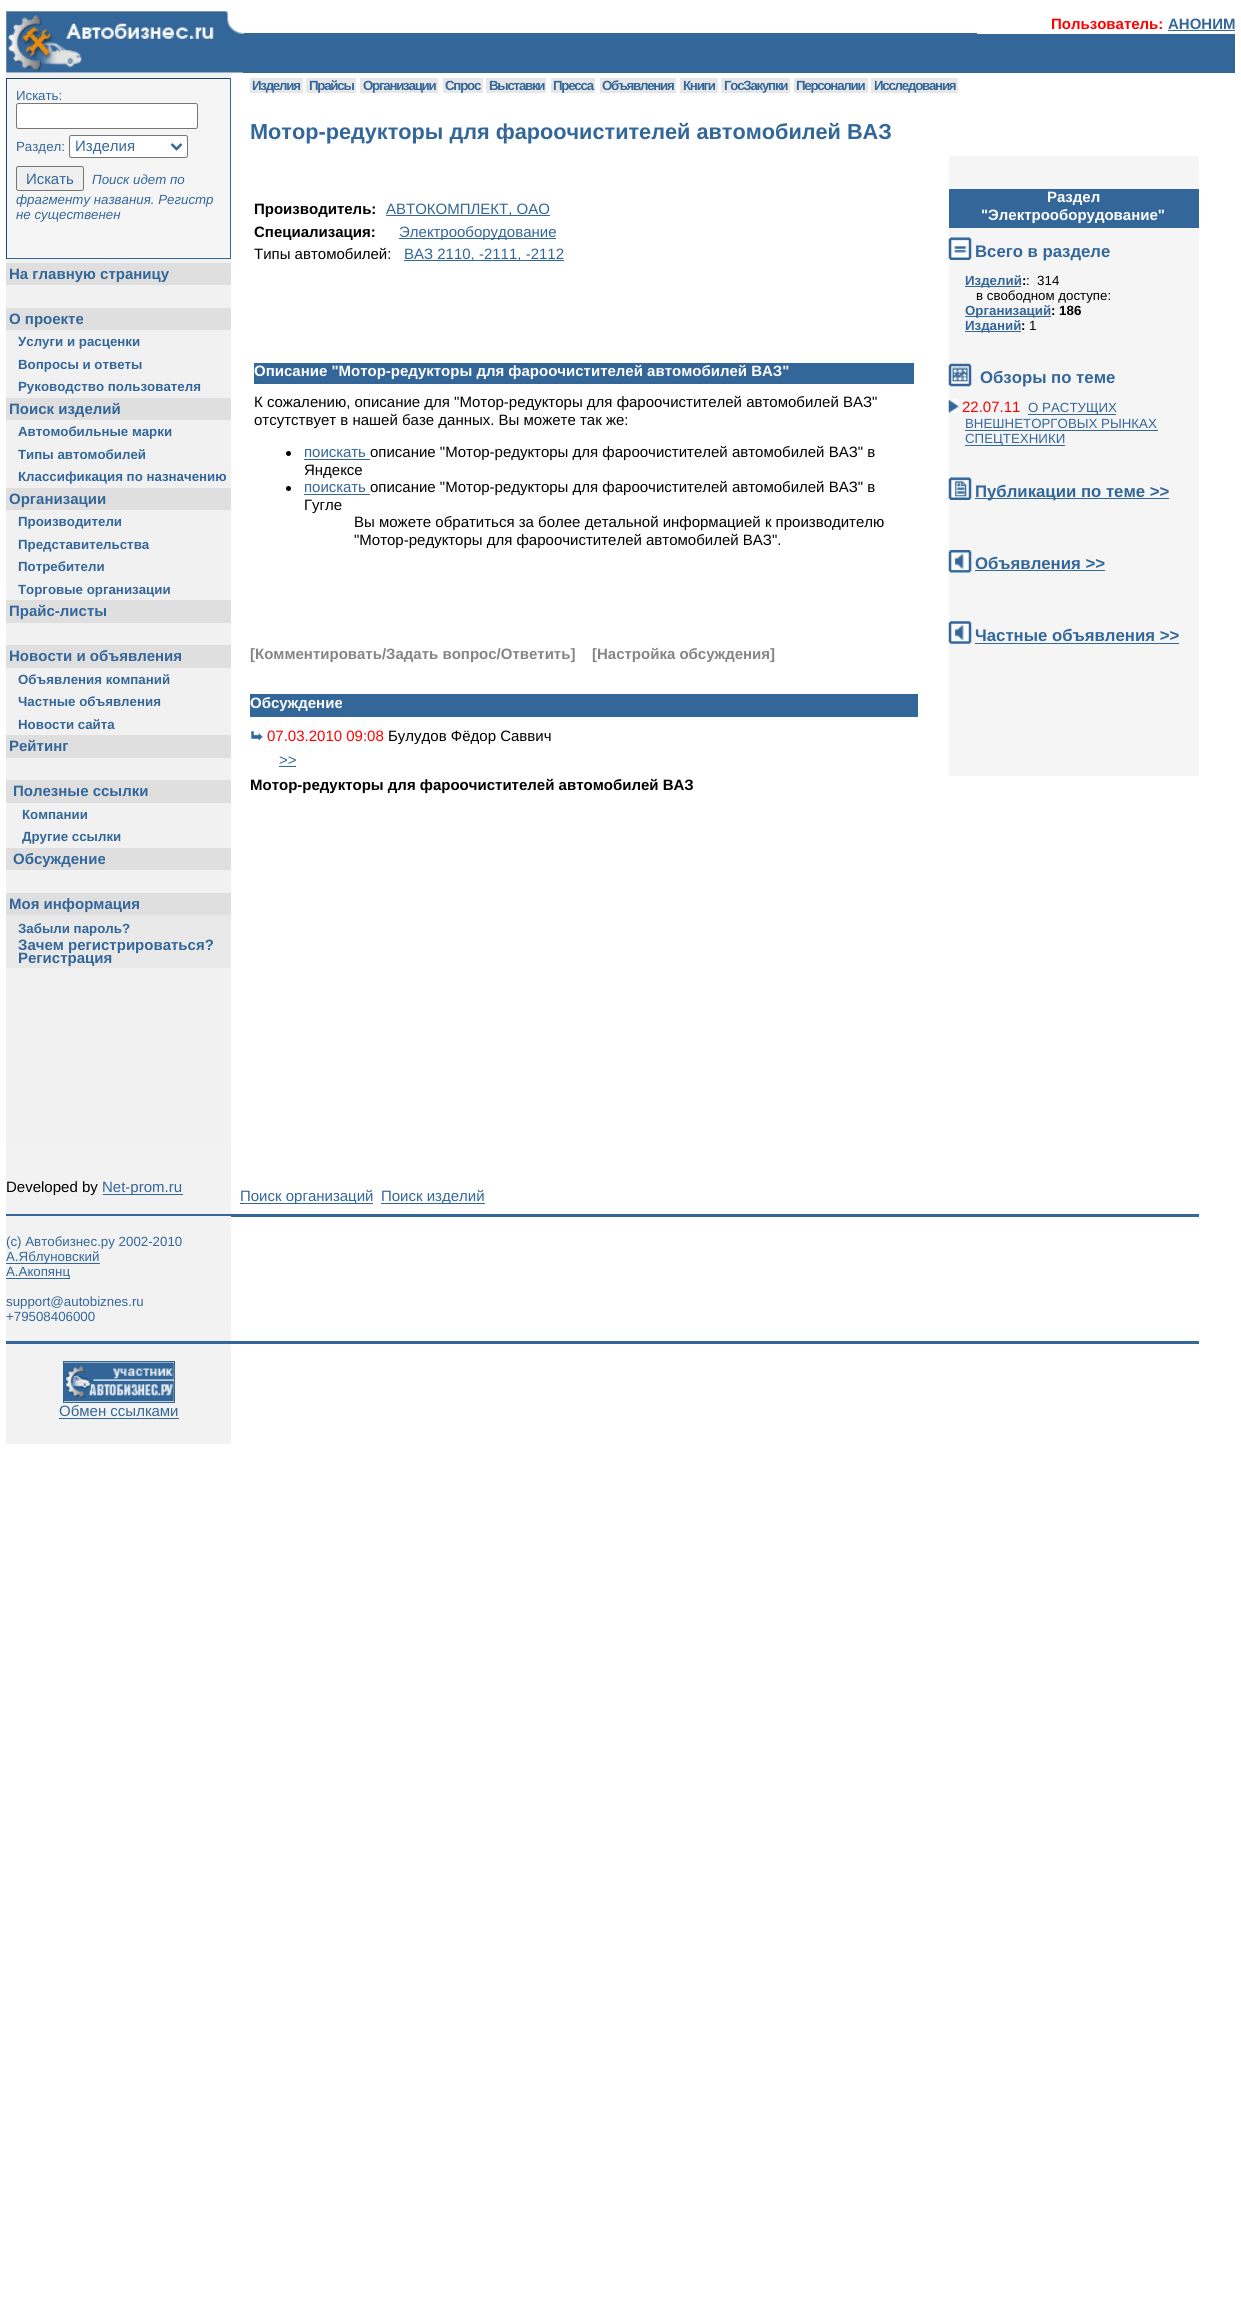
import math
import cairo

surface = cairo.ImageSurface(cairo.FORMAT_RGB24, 1241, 2320)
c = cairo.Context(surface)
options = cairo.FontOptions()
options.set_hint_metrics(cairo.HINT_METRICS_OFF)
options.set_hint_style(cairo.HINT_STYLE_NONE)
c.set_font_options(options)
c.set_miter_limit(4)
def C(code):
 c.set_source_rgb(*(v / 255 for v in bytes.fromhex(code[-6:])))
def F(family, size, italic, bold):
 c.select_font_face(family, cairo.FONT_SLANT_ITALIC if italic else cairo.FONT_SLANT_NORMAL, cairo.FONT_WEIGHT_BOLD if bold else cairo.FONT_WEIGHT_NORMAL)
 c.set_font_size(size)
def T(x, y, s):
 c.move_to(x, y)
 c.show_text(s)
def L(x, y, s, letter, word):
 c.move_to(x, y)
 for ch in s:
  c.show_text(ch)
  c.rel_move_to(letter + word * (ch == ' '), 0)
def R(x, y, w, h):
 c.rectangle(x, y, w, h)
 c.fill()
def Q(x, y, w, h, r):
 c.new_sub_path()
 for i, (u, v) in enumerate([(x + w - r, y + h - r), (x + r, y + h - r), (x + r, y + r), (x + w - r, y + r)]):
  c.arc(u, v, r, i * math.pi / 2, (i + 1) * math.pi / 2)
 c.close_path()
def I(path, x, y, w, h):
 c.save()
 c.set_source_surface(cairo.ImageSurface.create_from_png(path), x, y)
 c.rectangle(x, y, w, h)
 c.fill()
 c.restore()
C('ffffff')
c.paint()
C('336699')
R(243,33,734,40)
I('1.png',6,11,238,62)
F('Liberation Sans',15,0,1)
C('ff0000')
T(1051,29,'Пользователь:')
C('336699')
T(1168,29,'АНОНИМ')
R(1168,30,67,1)
R(977,34,258,39)
C('f1f1f1')
R(6,73,225,1071)
C('f5f5f5')
R(7,79,223,179)
C('224466')
R(6,78,225,1)
C('336699')
R(230,78,1,181)
R(6,258,225,1)
C('224466')
R(6,78,1,181)
F('Liberation Sans',13.3,0,0)
C('336699')
T(16,100,'Искать:')
C('ffffff')
Q(16.5,103.5,181,25,2)
c.fill_preserve()
C('767676')
c.set_line_width(1)
c.stroke()
C('336699')
T(16,151,'Раздел:')
C('ffffff')
Q(69.5,135.5,118,22,2)
c.fill_preserve()
C('767676')
c.stroke()
c.new_path()
c.move_to(171.5,144)
c.line_to(176.5,149)
c.line_to(181.5,144)
C('336699')
c.set_line_width(2.5)
c.stroke()
F('Liberation Sans',15,0,0)
T(75,151,'Изделия')
C('efefef')
Q(16.5,166.5,67,24,2)
c.fill_preserve()
C('767676')
c.set_line_width(1)
c.stroke()
C('336699')
T(26,184,'Искать')
F('Liberation Sans',13.3,1,0)
T(92,184,'Поиск идет по')
T(16,204,'фрагменту названия. Регистр')
T(16,219,'не существенен')
C('dfdfdf')
R(6,263,225,22)
F('Liberation Sans',15,0,1)
C('336699')
T(9,279,'На главную страницу')
C('dfdfdf')
R(6,308,225,22)
C('336699')
T(9,324,'О проекте')
F('Liberation Sans',13.3,0,1)
T(18,346,'Услуги и расценки')
T(18,369,'Вопросы и ответы')
T(18,391,'Руководство пользователя')
C('dfdfdf')
R(6,398,225,22)
F('Liberation Sans',15,0,1)
C('336699')
T(9,414,'Поиск изделий')
F('Liberation Sans',13.3,0,1)
T(18,436,'Автомобильные марки')
T(18,459,'Типы автомобилей')
T(18,481,'Классификация по назначению')
C('dfdfdf')
R(6,488,225,22)
F('Liberation Sans',15,0,1)
C('336699')
T(9,504,'Организации')
F('Liberation Sans',13.3,0,1)
T(18,526,'Производители')
T(18,549,'Представительства')
T(18,571,'Потребители')
T(18,594,'Торговые организации')
C('dfdfdf')
R(6,600,225,23)
F('Liberation Sans',15,0,1)
C('336699')
T(9,616,'Прайс-листы')
C('dfdfdf')
R(6,645,225,23)
C('336699')
T(9,661,'Новости и объявления')
F('Liberation Sans',13.3,0,1)
T(18,684,'Объявления компаний')
T(18,706,'Частные объявления')
T(18,729,'Новости сайта')
C('dfdfdf')
R(6,735,225,23)
F('Liberation Sans',15,0,1)
C('336699')
T(9,751,'Рейтинг')
C('dfdfdf')
R(6,780,225,23)
C('336699')
T(13,796,'Полезные ссылки')
F('Liberation Sans',13.3,0,1)
T(22,819,'Компании')
T(22,841,'Другие ссылки')
C('dfdfdf')
R(6,848,225,22)
F('Liberation Sans',15,0,1)
C('336699')
T(13,864,'Обсуждение')
C('dfdfdf')
R(6,893,225,22)
C('336699')
T(9,909,'Моя информация')
C('e9e9e9')
R(6,915,225,53)
F('Liberation Sans',13.3,0,1)
C('336699')
T(18,933,'Забыли пароль?')
F('Liberation Sans',15,0,1)
T(18,950,'Зачем регистрироваться?')
T(18,963,'Регистрация')
C('e7e7e7')
R(250,78,53,15)
F('Liberation Sans',13.3,0,1)
C('336699')
L(252,90,'Изделия',-1.25,0)
C('e7e7e7')
R(306,78,50,15)
C('336699')
L(309,90,'Прайсы',-1.25,0)
C('e7e7e7')
R(360,78,78,15)
C('336699')
L(363,90,'Организации',-1.25,0)
C('e7e7e7')
R(443,78,40,15)
C('336699')
L(445,90,'Спрос',-1.25,0)
C('e7e7e7')
R(486,78,60,15)
C('336699')
L(489,90,'Выставки',-1.25,0)
C('e7e7e7')
R(551,78,44,15)
C('336699')
L(553,90,'Пресса',-1.25,0)
C('e7e7e7')
R(600,78,76,15)
C('336699')
L(602,90,'Объявления',-1.25,0)
C('e7e7e7')
R(680,78,38,15)
C('336699')
L(683,90,'Книги',-1.25,0)
C('e7e7e7')
R(721,78,69,15)
C('336699')
L(724,90,'ГосЗакупки',-1.25,0)
C('e7e7e7')
R(794,78,74,15)
C('336699')
L(796,90,'Персоналии',-1.25,0)
C('e7e7e7')
R(871,78,87,15)
C('336699')
L(874,90,'Исследования',-1.25,0)
F('Liberation Sans',21.7,0,1)
T(250,139,'Мотор-редукторы для фароочистителей автомобилей ВАЗ')
F('Liberation Sans',15,0,1)
C('000000')
T(254,214,'Производитель:')
C('336699')
R(386,215,164,1)
F('Liberation Sans',15,0,0)
T(386,214,'АВТОКОМПЛЕКТ, ОАО')
F('Liberation Sans',15,0,1)
C('000000')
T(254,237,'Специализация:')
C('336699')
R(399,238,157,1)
F('Liberation Sans',15,0,0)
T(399,237,'Электрооборудование')
C('000000')
T(254,259,'Типы автомобилей:')
C('336699')
R(404,260,160,1)
T(404,259,'ВАЗ 2110, -2111, -2112')
R(254,363,660,21)
F('Liberation Sans',15,0,1)
C('ffffff')
T(254,376,'Описание "Мотор-редукторы для фароочистителей автомобилей ВАЗ"')
F('Liberation Sans',15,0,0)
C('000000')
T(254,407,'К сожалению, описание для "Мотор-редукторы для фароочистителей автомобилей ВАЗ"')
T(254,425,'отсутствует в нашей базе данных. Вы можете так же:')
c.new_path()
c.arc(288.5,453.5,2.5,0,2 * math.pi)
c.fill()
C('336699')
T(304,457,'поискать')
R(304,459,66,1)
C('000000')
T(370,457,'описание "Мотор-редукторы для фароочистителей автомобилей ВАЗ" в')
T(304,475,'Яндексе')
c.new_path()
c.arc(288.5,488.5,2.5,0,2 * math.pi)
c.fill()
C('336699')
T(304,492,'поискать')
R(304,494,66,1)
C('000000')
T(370,492,'описание "Мотор-редукторы для фароочистителей автомобилей ВАЗ" в')
T(304,510,'Гугле')
T(354,527,'Вы можете обратиться за более детальной информацией к производителю')
T(354,545,'"Мотор-редукторы для фароочистителей автомобилей ВАЗ".')
F('Liberation Sans',15,0,1)
C('858585')
T(250,659,'[Комментировать/Задать вопрос/Ответить]')
T(592,659,'[Настройка обсуждения]')
C('336699')
R(250,694,668,23)
C('ffffff')
T(250,708,'Обсуждение')
I('2.png',251,731,12,10)
F('Liberation Sans',15,0,0)
C('ff0000')
T(267,741,'07.03.2010 09:08')
C('000000')
T(388,741,'Булудов Фёдор Саввич')
C('336699')
T(279,765,'>>')
R(279,766,17,1)
C('f5f5f5')
R(949,156,250,620)
C('336699')
R(949,189,250,39)
F('Liberation Sans',15,0,1)
C('ffffff')
T(1047,202,'Раздел')
T(981,220,'"Электрооборудование"')
I('3.png',948,237,24,23)
F('Liberation Sans',16.75,0,1)
C('336699')
T(975,257,'Всего в разделе')
R(965,286,56,1)
F('Liberation Sans',13.3,0,1)
T(965,285,'Изделий')
C('000000')
T(1022,285,':')
F('Liberation Sans',13.3,0,0)
T(1026,285,':  314')
T(976,300,'в свободном доступе:')
C('336699')
R(965,316,86,1)
F('Liberation Sans',13.3,0,1)
T(965,315,'Организаций')
C('000000')
T(1051,315,': 186')
C('336699')
R(965,331,56,1)
T(965,330,'Изданий')
C('000000')
T(1021,330,':')
F('Liberation Sans',13.3,0,0)
T(1029,330,'1')
I('4.png',948,363,24,24)
F('Liberation Sans',16.75,0,1)
C('336699')
T(980,383,'Обзоры по теме')
I('5.png',948,399,11,14)
F('Liberation Sans',15,0,0)
C('ff0000')
T(962,412,'22.07.11')
C('336699')
R(1028,414,88,1)
F('Liberation Sans',13.3,0,0)
T(1028,412,'О РАСТУЩИХ')
T(965,428,'ВНЕШНЕТОРГОВЫХ РЫНКАХ')
R(965,430,193,1)
R(965,445,100,1)
T(965,443,'СПЕЦТЕХНИКИ')
I('6.png',948,477,24,23)
R(975,498,194,1)
F('Liberation Sans',16.75,0,1)
T(975,497,'Публикации по теме >>')
I('7.png',948,550,24,23)
T(975,569,'Объявления >>')
R(975,570,130,1)
I('8.png',948,621,24,23)
T(975,641,'Частные объявления >>')
R(975,643,204,1)
F('Liberation Sans',15,0,1)
C('000000')
T(250,790,'Мотор-редукторы для фароочистителей автомобилей ВАЗ')
C('f2f2f2')
R(6,1144,225,70)
F('Liberation Sans',15,0,0)
C('000000')
T(6,1192,'Developed by')
C('336699')
R(103,1194,80,1)
T(102,1192,'Net-prom.ru')
R(240,1203,133,1)
T(240,1201,'Поиск организаций')
R(381,1203,104,1)
T(381,1201,'Поиск изделий')
R(6,1214,1193,3)
C('f2f2f2')
R(6,1216,225,125)
F('Liberation Sans',13.3,0,0)
C('336699')
T(6,1246,'(c) Автобизнес.ру 2002-2010')
R(6,1263,94,1)
T(6,1261,'А.Яблуновский')
R(6,1278,64,1)
T(6,1276,'А.Акопянц')
T(6,1306,'support@autobiznes.ru')
T(6,1321,'+79508406000')
R(6,1341,1193,3)
C('f2f2f2')
R(6,1344,225,100)
c.rectangle(63.5,1361.5,111,41)
C('336699')
c.stroke()
I('9.png',64,1362,110,40)
F('Liberation Sans',15,0,0)
T(59,1416,'Обмен ссылками')
R(59,1418,120,1)
surface.write_to_png('o.png')
